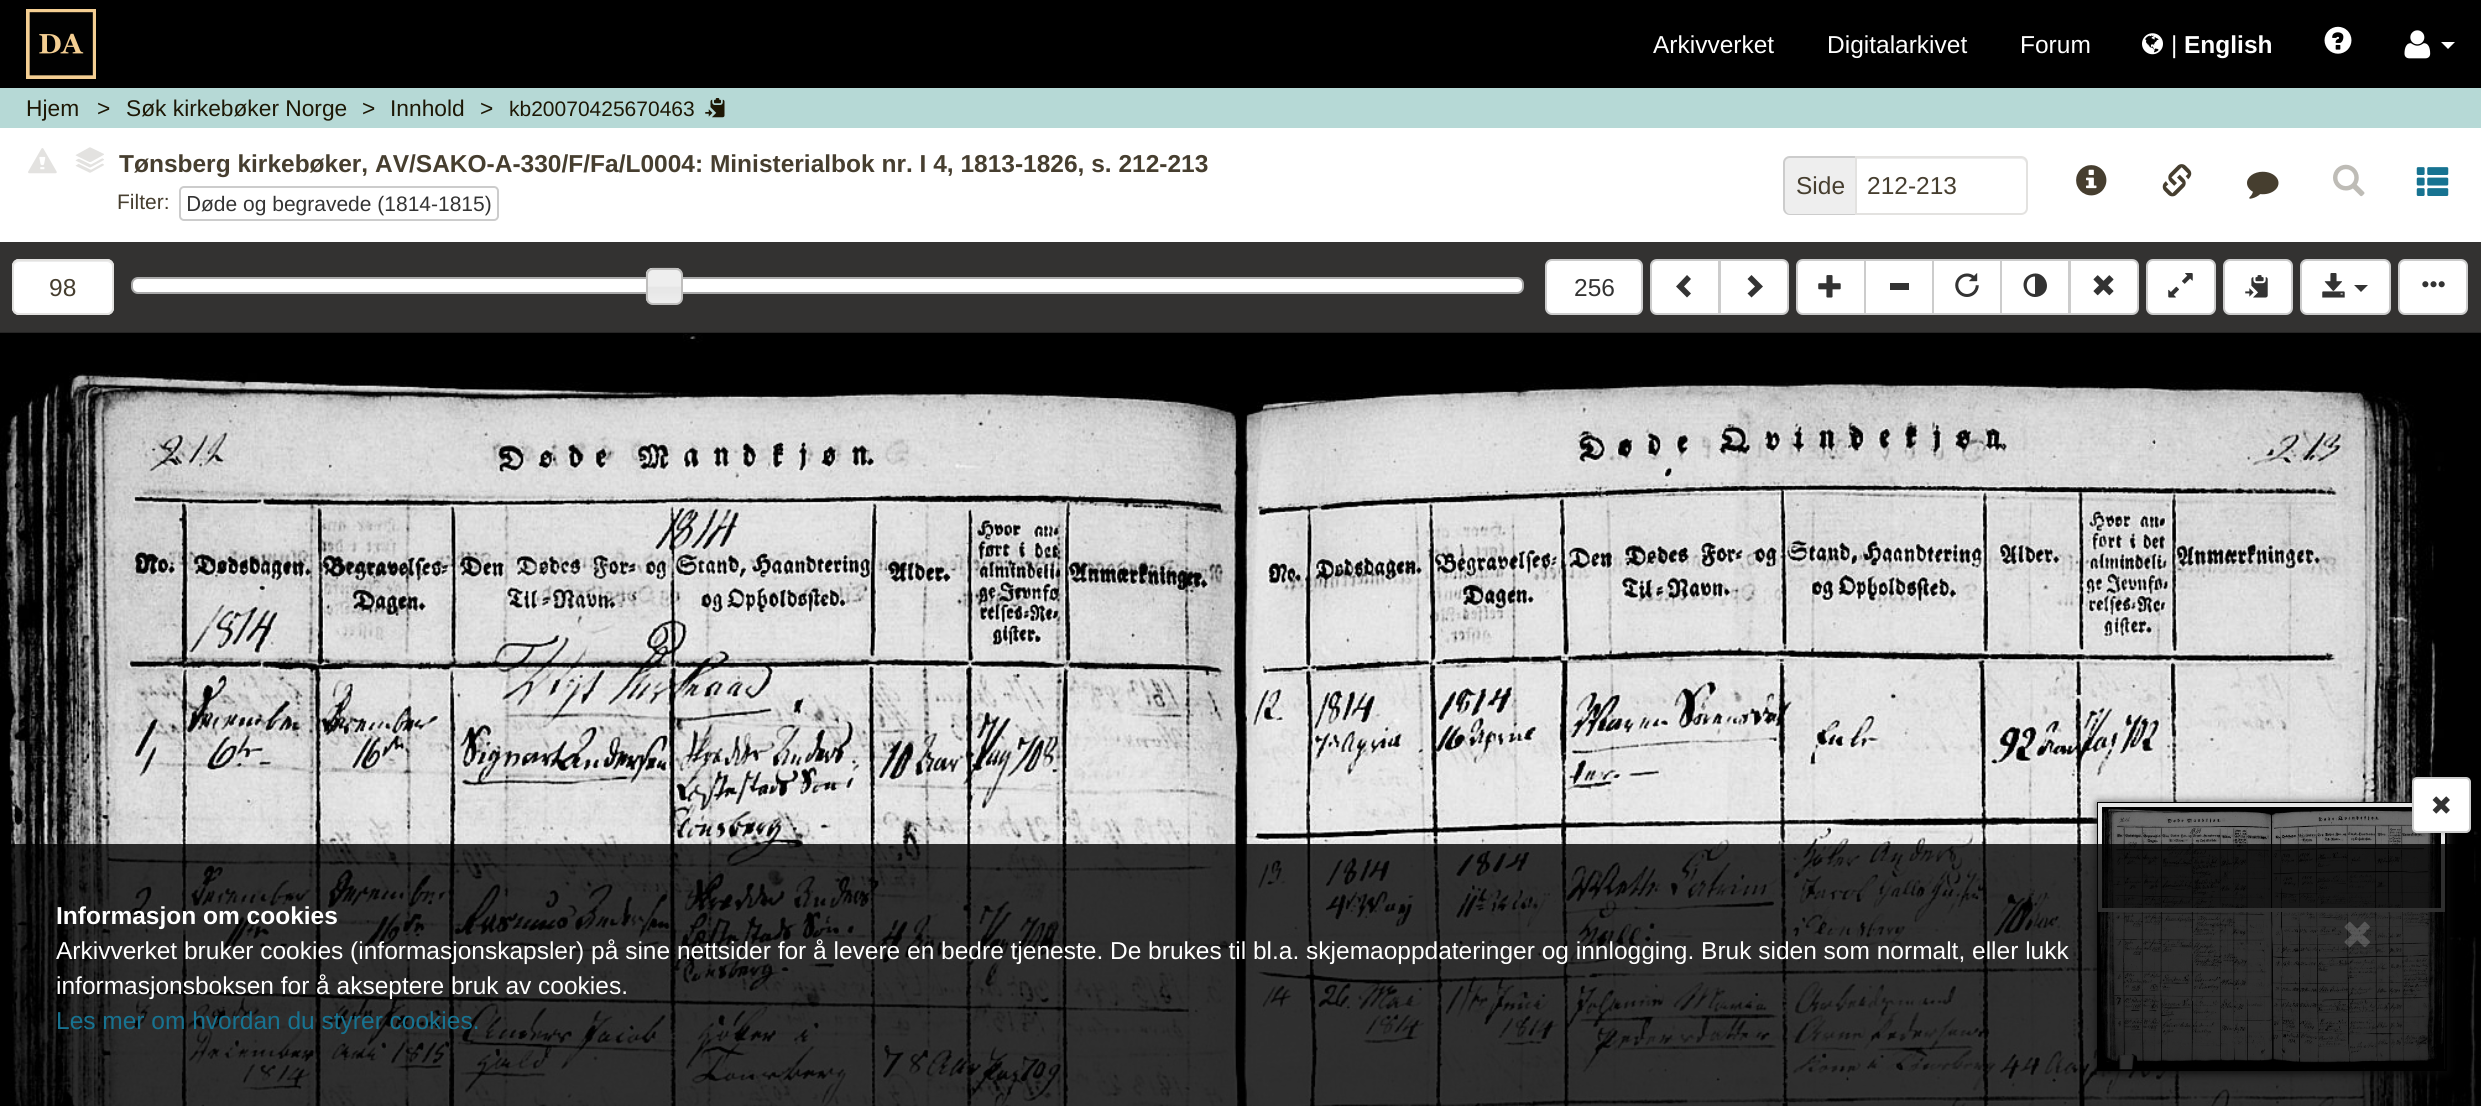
import math
import cairo

surface = cairo.ImageSurface(cairo.FORMAT_RGB24, 2481, 1106)
c = cairo.Context(surface)
options = cairo.FontOptions()
options.set_hint_metrics(cairo.HINT_METRICS_OFF)
options.set_hint_style(cairo.HINT_STYLE_NONE)
c.set_font_options(options)
c.set_miter_limit(4)
def C(code):
 c.set_source_rgb(*(v / 255 for v in bytes.fromhex(code[-6:])))
def F(family, size, italic, bold):
 c.select_font_face(family, cairo.FONT_SLANT_ITALIC if italic else cairo.FONT_SLANT_NORMAL, cairo.FONT_WEIGHT_BOLD if bold else cairo.FONT_WEIGHT_NORMAL)
 c.set_font_size(size)
def T(x, y, s):
 c.move_to(x, y)
 c.show_text(s)
def R(x, y, w, h):
 c.rectangle(x, y, w, h)
 c.fill()
def Q(x, y, w, h, r):
 c.new_sub_path()
 for i, (u, v) in enumerate([(x + w - r, y + h - r), (x + r, y + h - r), (x + r, y + r), (x + w - r, y + r)]):
  c.arc(u, v, r, i * math.pi / 2, (i + 1) * math.pi / 2)
 c.close_path()
def S(x, y, w, h, r, blur, alpha):
 c.push_group_with_content(cairo.CONTENT_ALPHA)
 c.set_operator(cairo.OPERATOR_SOURCE)
 for i in range(15, -16, -2):
  e = blur * i / 6
  if min(w, h) + 2 * e > 0:
   c.set_source_rgba(0, 0, 0, alpha * math.erfc((i - 1) / 8.5) / 2)
   Q(x - e, y - e, w + 2 * e, h + 2 * e, max(0, min(r + e + blur * .6, min(w, h) / 2 + e)))
   c.fill()
 c.mask(c.pop_group())
def I(path, x, y, w, h):
 c.save()
 c.set_source_surface(cairo.ImageSurface.create_from_png(path), x, y)
 c.rectangle(x, y, w, h)
 c.fill()
 c.restore()
C('b6d9d6')
c.paint()
C('000000')
R(0,0,2481,88)
I('1.png',26,9,70,70)
F('Liberation Sans',24.5,0,0)
C('ffffff')
T(1653,53,'Arkivverket')
T(1827,53,'Digitalarkivet')
T(2020,53,'Forum')
I('2.png',2142,33,21,22)
T(2171,53,'|')
F('Liberation Sans',24.5,0,1)
T(2184,53,'English')
I('3.png',2324,26,28,28)
I('4.png',2404,30,27,29)
c.new_path()
c.move_to(2441,42)
c.line_to(2455,42)
c.line_to(2448,49)
c.close_path()
c.fill()
F('Liberation Sans',22.75,0,0)
C('1d1705')
T(26,116,'Hjem')
T(97,116,'>')
T(126,116,'Søk kirkebøker Norge')
T(362,116,'>')
T(390,116,'Innhold')
T(480,116,'>')
F('Liberation Sans',21,0,0)
T(509,116,'kb20070425670463')
I('5.png',705,98,20,20)
C('ffffff')
R(0,128,2481,114)
I('6.png',28,148,29,26)
I('11.png',75,163,29,10)
I('10.png',79,161,23,9)
I('9.png',75,158,29,10)
I('8.png',78,155,24,10)
I('7.png',75,147,29,15)
F('Liberation Sans',24.5,0,1)
C('463e2f')
T(119,172,'Tønsberg kirkebøker, AV/SAKO-A-330/F/Fa/L0004: Ministerialbok nr. I 4, 1813-1826, s. 212-213')
F('Liberation Sans',21,0,0)
T(117,209,'Filter:')
Q(180,187,318,33,4)
C('cccccc')
c.stroke()
F('Noto Sans',21,0,0)
C('333333')
T(186,211,'D')
F('Liberation Sans',21,0,0)
T(201,211,'øde og begravede (1814-1815)')
C('eeeeee')
c.new_path()
c.move_to(1790,156)
c.line_to(1855,156)
c.line_to(1855,215)
c.line_to(1790,215)
c.curve_to(1786,215,1783,212,1783,208)
c.line_to(1783,163)
c.curve_to(1783,159,1786,156,1790,156)
c.close_path()
c.fill()
C('cccccc')
c.set_fill_rule(cairo.FILL_RULE_EVEN_ODD)
c.new_path()
c.move_to(1790,156)
c.line_to(1855,156)
c.line_to(1855,215)
c.line_to(1790,215)
c.curve_to(1786,215,1783,212,1783,208)
c.line_to(1783,163)
c.curve_to(1783,159,1786,156,1790,156)
c.close_path()
c.move_to(1790,158)
c.line_to(1855,158)
c.line_to(1855,214)
c.line_to(1790,214)
c.curve_to(1787,214,1785,211,1785,208)
c.line_to(1785,163)
c.curve_to(1785,160,1787,158,1790,158)
c.close_path()
c.fill()
F('Liberation Sans',24.5,0,0)
C('463e2f')
T(1796,194,'Side')
C('ececec')
c.set_fill_rule(cairo.FILL_RULE_WINDING)
c.new_path()
c.move_to(1857,159)
c.line_to(2021,159)
c.curve_to(2024,159,2026,162,2026,164)
c.line_to(2026,210)
c.line_to(2025,213)
c.curve_to(2026,212,2027,210,2027,209)
c.line_to(2027,163)
c.curve_to(2027,160,2025,158,2022,158)
c.line_to(1857,158)
c.close_path()
c.fill()
c.new_path()
c.move_to(1856,157)
c.line_to(2021,157)
c.curve_to(2024.5,157,2027,159.5,2027,163)
c.line_to(2027,208)
c.curve_to(2027,211.5,2024.5,214,2021,214)
c.line_to(1856,214)
c.close_path()
C('e3e2e0')
c.stroke()
C('463e2f')
T(1867,194,'212-213')
I('12.png',2076,165,31,31)
I('13.png',2162,164,30,33)
I('14.png',2247,171,32,28)
I('15.png',2333,164,32,33)
I('16.png',2416,167,33,29)
C('333231')
R(0,242,2481,91)
C('ffffff')
Q(12,259,102,56,7)
c.fill()
C('ececec')
c.new_path()
c.move_to(19,262)
c.line_to(107,262)
c.curve_to(110,262,112,265,112,268)
c.curve_to(112,257,101,261,92,261)
c.line_to(34,261)
c.curve_to(25,261,14,257,14,268)
c.curve_to(14,265,16,262,19,262)
c.close_path()
c.fill()
Q(13,260,100,54,6)
C('e3e2e0')
c.stroke()
C('463e2f')
T(49,296,'98')
C('ffffff')
Q(132,278,1391,15,6)
c.fill_preserve()
C('aaaaaa')
c.stroke()
I('17.png',645,267,38,38)
Q(647,269,35,35,6)
C('bfbebd')
c.stroke()
C('ffffff')
Q(1546,260,96,54,6)
c.fill_preserve()
C('cccccc')
c.stroke()
C('333333')
T(1574,296,'256')
C('ffffff')
c.new_path()
c.move_to(1657,260)
c.line_to(1719,260)
c.line_to(1719,314)
c.line_to(1657,314)
c.curve_to(1653.5,314,1651,311.5,1651,308)
c.line_to(1651,266)
c.curve_to(1651,262.5,1653.5,260,1657,260)
c.close_path()
c.fill_preserve()
C('cccccc')
c.stroke()
C('333333')
c.new_path()
c.move_to(1691,279)
c.line_to(1684,286.5)
c.line_to(1691,293.5)
c.line_to(1687,297.5)
c.line_to(1676,286.5)
c.line_to(1687,275)
c.close_path()
c.fill()
C('ffffff')
c.new_path()
c.move_to(1720,260)
c.line_to(1782,260)
c.curve_to(1785.5,260,1788,262.5,1788,266)
c.line_to(1788,308)
c.curve_to(1788,311.5,1785.5,314,1782,314)
c.line_to(1720,314)
c.close_path()
c.fill_preserve()
C('cccccc')
c.stroke()
C('333333')
c.new_path()
c.move_to(1763,286.5)
c.line_to(1751.5,297.5)
c.line_to(1747.5,293.5)
c.line_to(1755,286.5)
c.line_to(1747.5,279)
c.line_to(1751.5,275)
c.close_path()
c.fill()
C('ffffff')
c.new_path()
c.move_to(1803,260)
c.line_to(1865,260)
c.line_to(1865,314)
c.line_to(1803,314)
c.curve_to(1799.5,314,1797,311.5,1797,308)
c.line_to(1797,266)
c.curve_to(1797,262.5,1799.5,260,1803,260)
c.close_path()
c.fill_preserve()
C('cccccc')
c.stroke()
I('18.png',1818,275,23,23)
C('ffffff')
c.rectangle(1865,260,68,54)
c.fill_preserve()
C('cccccc')
c.stroke()
C('333333')
R(1890,283,19,7)
C('ffffff')
c.rectangle(1933,260,68,54)
c.fill_preserve()
C('cccccc')
c.stroke()
I('19.png',1955,273,24,24)
C('ffffff')
c.rectangle(2001,260,68,54)
c.fill_preserve()
C('cccccc')
c.stroke()
C('333333')
c.new_path()
c.move_to(2030.5,274.5)
c.curve_to(2045,268.5,2054,290,2040,296)
c.curve_to(2025.5,302,2016.5,280.5,2030.5,274.5)
c.close_path()
c.move_to(2035,294)
c.line_to(2035,276.5)
c.curve_to(2024,276.5,2024,294,2035,294)
c.close_path()
c.fill()
C('ffffff')
c.new_path()
c.move_to(2070,260)
c.line_to(2132,260)
c.curve_to(2135.5,260,2138,262.5,2138,266)
c.line_to(2138,308)
c.curve_to(2138,311.5,2135.5,314,2132,314)
c.line_to(2070,314)
c.close_path()
c.fill_preserve()
C('cccccc')
c.stroke()
I('20.png',2093,275,21,21)
C('ffffff')
Q(2147,260,68,54,6)
c.fill_preserve()
C('cccccc')
c.stroke()
I('21.png',2168,273,25,25)
C('ffffff')
Q(2224,260,68,54,6)
c.fill_preserve()
C('cccccc')
c.stroke()
I('22.png',2245,275,23,23)
C('ffffff')
Q(2301,260,89,54,6)
c.fill_preserve()
C('cccccc')
c.stroke()
I('23.png',2322,273,23,25)
C('333333')
c.new_path()
c.move_to(2354,285)
c.line_to(2368,285)
c.line_to(2361,292)
c.close_path()
c.fill()
C('ffffff')
Q(2399,260,68,54,6)
c.fill_preserve()
C('cccccc')
c.stroke()
I('24.png',2422,281,23,7)
I('25.png',0,332,2481,774)
C('323232')
S(2098,803,350,270,0,4.5,1)
c.rectangle(2098,803,348,267)
C('000000')
c.stroke()
I('27.png',2099,803,345,267)
c.set_source_rgba(0,0,0,0.5)
R(2099,803,346,109)
c.rectangle(2100,805,343,105)
c.set_source_rgba(1,1,1,0.9)
c.set_line_width(4)
c.stroke()
C('000000')
S(2412,779,59,56,5,1,.1)
C('ffffff')
Q(2413,778,57,54,4)
c.fill_preserve()
C('cccccc')
c.set_line_width(2)
c.stroke()
I('26.png',2432,796,18,18)
c.set_source_rgba(0,0,0,0.8)
R(10,844,2470,262)
F('Liberation Sans',24.5,0,1)
C('ffffff')
T(56,924,'Informasjon om cookies')
I('28.png',2344,921,26,27)
F('Liberation Sans',24.5,0,0)
T(56,959,'Arkivverket bruker cookies (informasjonskapsler) på sine nettsider for å levere en bedre tjeneste. De brukes til bl.a. skjemaoppdateringer og innlogging. Bruk siden som normalt, eller lukk')
T(56,994,'informasjonsboksen for å akseptere bruk av cookies.')
C('177391')
T(56,1029,'Les mer om hvordan du styrer cookies.')
surface.write_to_png('o.png')
